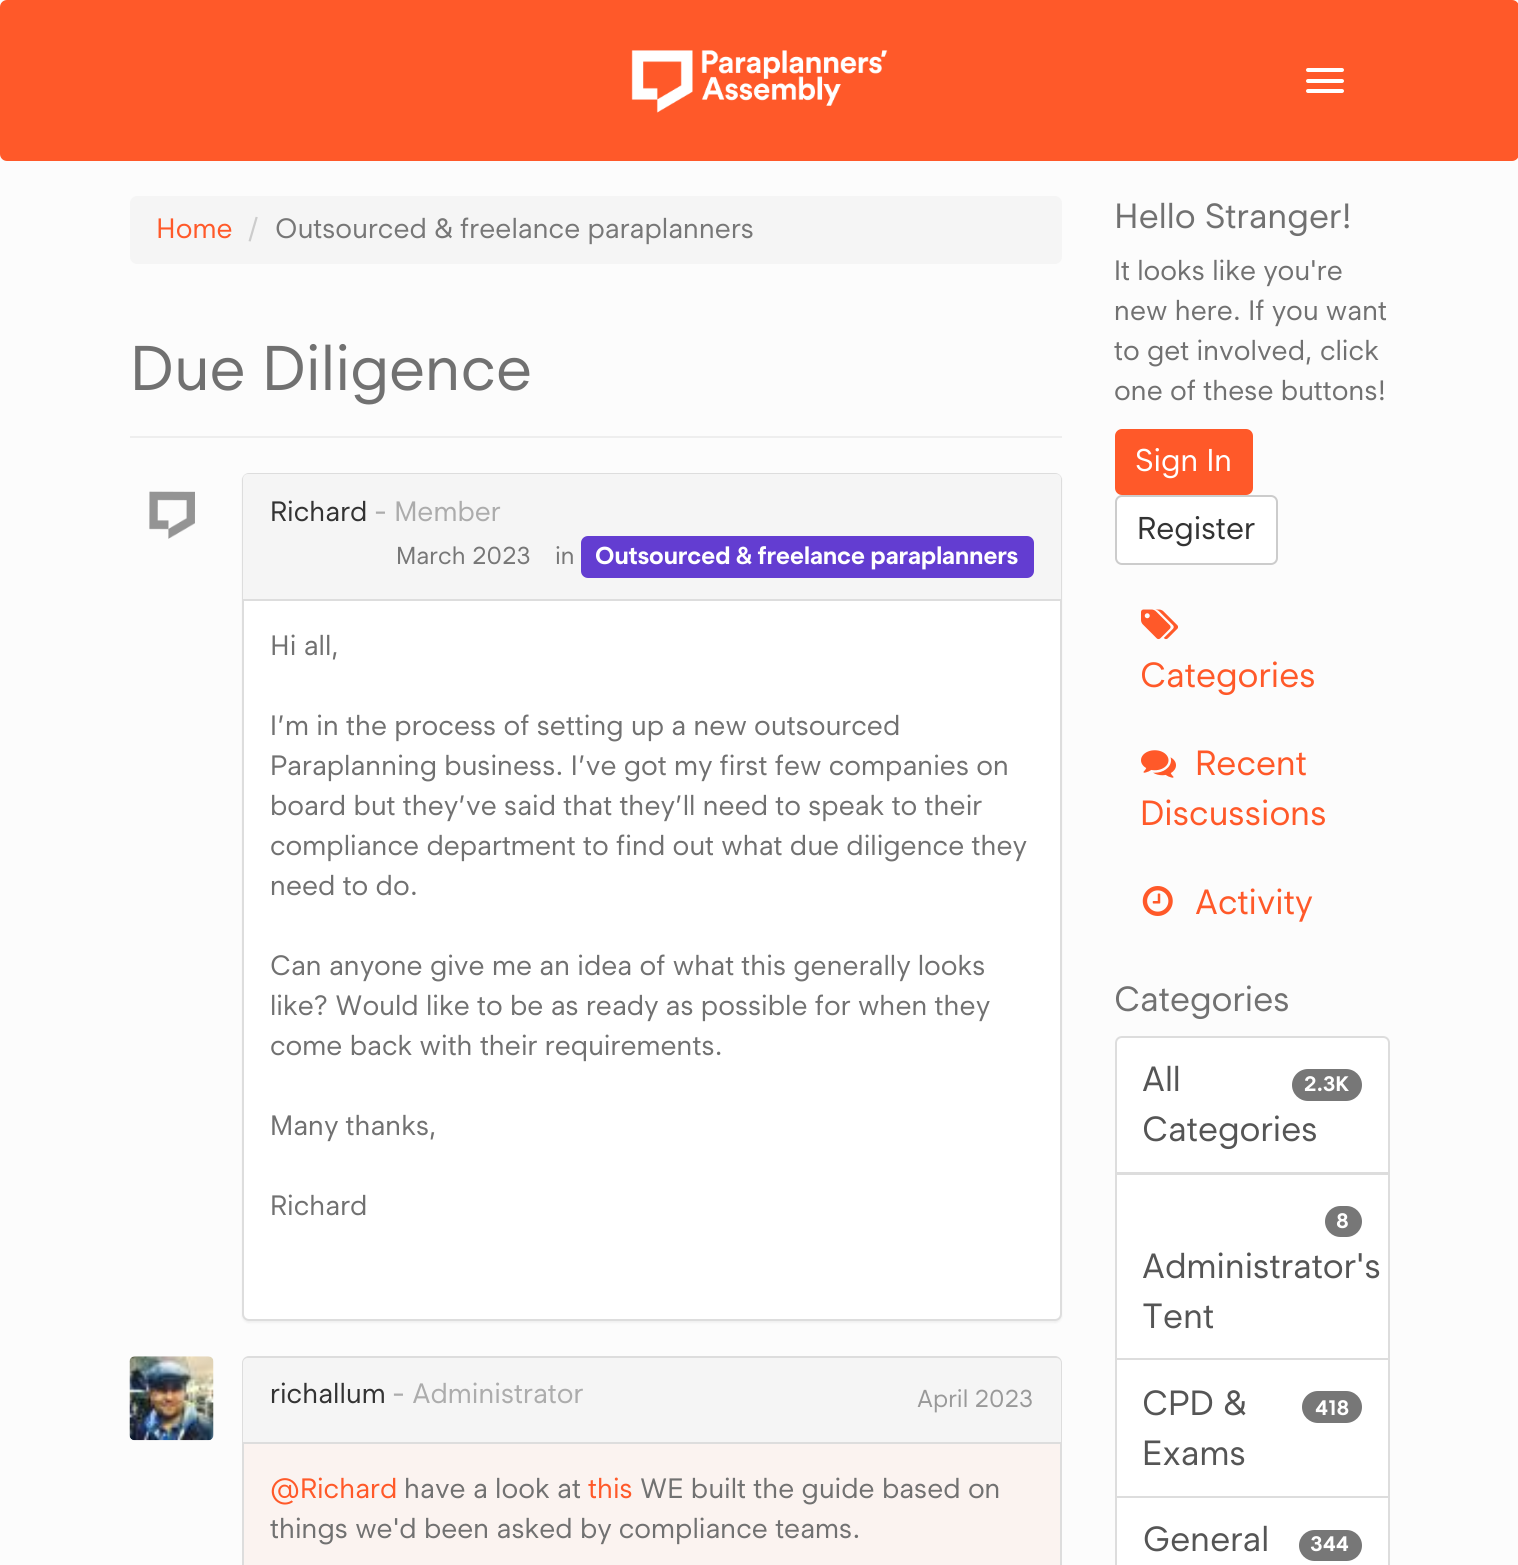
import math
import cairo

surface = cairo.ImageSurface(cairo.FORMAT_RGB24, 1518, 1565)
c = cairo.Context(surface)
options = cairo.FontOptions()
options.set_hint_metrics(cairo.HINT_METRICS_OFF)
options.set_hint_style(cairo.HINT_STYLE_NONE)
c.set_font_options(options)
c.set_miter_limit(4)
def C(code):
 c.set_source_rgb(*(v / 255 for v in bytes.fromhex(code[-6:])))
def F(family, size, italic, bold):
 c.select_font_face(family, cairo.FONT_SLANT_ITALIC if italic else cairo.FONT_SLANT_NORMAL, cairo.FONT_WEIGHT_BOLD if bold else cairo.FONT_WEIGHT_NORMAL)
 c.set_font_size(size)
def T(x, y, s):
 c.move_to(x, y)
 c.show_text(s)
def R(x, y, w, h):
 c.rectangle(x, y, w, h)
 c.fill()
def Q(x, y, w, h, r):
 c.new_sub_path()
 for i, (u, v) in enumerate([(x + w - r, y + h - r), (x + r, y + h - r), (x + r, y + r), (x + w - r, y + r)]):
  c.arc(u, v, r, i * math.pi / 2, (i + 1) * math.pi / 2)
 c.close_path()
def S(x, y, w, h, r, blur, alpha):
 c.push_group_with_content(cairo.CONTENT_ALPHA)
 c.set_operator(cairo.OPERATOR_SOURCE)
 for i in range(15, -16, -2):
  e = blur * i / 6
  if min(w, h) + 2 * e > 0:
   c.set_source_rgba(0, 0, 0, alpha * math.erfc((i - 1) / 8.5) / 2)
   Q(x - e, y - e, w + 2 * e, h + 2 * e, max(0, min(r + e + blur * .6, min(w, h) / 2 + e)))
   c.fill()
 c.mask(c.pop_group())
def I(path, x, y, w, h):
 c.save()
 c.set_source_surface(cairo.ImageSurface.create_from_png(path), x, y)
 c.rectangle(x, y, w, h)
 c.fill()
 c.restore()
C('fcfcfc')
c.paint()
C('ff5929')
Q(0,0,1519,161,7)
c.fill()
I('1.png',631,50,257,63)
C('ffffff')
Q(1306,68,38,4,2)
c.fill()
Q(1306,79,38,4,2)
c.fill()
Q(1306,89,38,4,2)
c.fill()
C('f5f5f5')
Q(130,196,932,68,7)
c.fill()
F('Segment',28,0,0)
C('ff5929')
T(156,238,'Home')
C('cccccc')
T(248,238,'/')
C('777777')
T(275,238,'Outsourced & freelance paraplanners')
C('eeeeee')
R(130,436,932,2)
F('Segment',63,0,0)
C('717171')
T(130,390,'Due Diligence')
C('000000')
S(242,474,820,849,7,1,.05)
C('ffffff')
Q(243,474,818,846,6)
c.fill_preserve()
C('dddddd')
c.stroke()
C('f5f5f5')
c.new_path()
c.move_to(248,474)
c.line_to(1056,474)
c.curve_to(1059,474,1061,476,1061,479)
c.line_to(1061,600)
c.line_to(243,600)
c.line_to(243,479)
c.curve_to(243,476,245,474,248,474)
c.close_path()
c.fill()
C('dddddd')
R(243,599,818,2)
I('2.png',149,491,46,48)
F('Segment',28,0,0)
C('333333')
T(270,521,'Richard')
C('acacac')
T(374,521,'- Member')
F('Segment',24.5,0,0)
C('777777')
T(396,564,'March 2023')
T(555,564,'in')
C('633dd1')
Q(581,536,453,42,7)
c.fill()
F('Segment',24.5,0,1)
C('ffffff')
T(595,564,'Outsourced & freelance paraplanners')
F('Segment',28,0,0)
C('717171')
T(270,655,'Hi all,')
T(270,735,'I’m in the process of setting up a new outsourced')
T(270,775,'Paraplanning business. I’ve got my first few companies on')
T(270,815,'board but they’ve said that they’ll need to speak to their')
T(270,855,'compliance department to find out what due diligence they')
T(270,895,'need to do.')
T(270,975,'Can anyone give me an idea of what this generally looks')
T(270,1015,'like? Would like to be as ready as possible for when they')
T(270,1055,'come back with their requirements.')
T(270,1135,'Many thanks,')
T(270,1215,'Richard')
C('fbf3f0')
Q(243,1357,818,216,6)
c.fill_preserve()
C('dddddd')
c.stroke()
C('f5f5f5')
c.new_path()
c.move_to(248,1358)
c.line_to(1056,1358)
c.curve_to(1059,1358,1061,1360,1061,1363)
c.line_to(1061,1444)
c.line_to(243,1444)
c.line_to(243,1363)
c.curve_to(243,1360,245,1358,248,1358)
c.close_path()
c.fill()
C('dddddd')
R(243,1442,818,2)
I('3.png',129,1356,85,85)
C('333333')
T(270,1403,'richallum')
C('acacac')
T(392,1403,'- Administrator')
F('Segment',24.5,0,0)
C('999999')
T(917,1407,'April 2023')
F('Segment',28,0,0)
C('ff5929')
T(270,1498,'@Richard')
C('717171')
T(404,1498,'have a look at')
C('ff5929')
T(588,1498,'this')
C('717171')
T(640,1498,'WE built the guide based on')
T(270,1538,'things we\'d been asked by compliance teams.')
F('Segment',35,0,0)
T(1114,228,'Hello Stranger!')
F('Segment',28,0,0)
T(1114,280,'It looks like you\'re')
T(1114,320,'new here. If you want')
T(1114,360,'to get involved, click')
T(1114,400,'one of these buttons!')
C('ff5929')
Q(1115,429,138,66,7)
c.fill()
F('Segment',31.5,0,0)
C('ffffff')
T(1135,471,'Sign In')
Q(1116,496,161,68,6)
c.fill_preserve()
C('cccccc')
c.stroke()
C('333333')
T(1137,539,'Register')
I('4.png',1141,609,37,31)
F('Segment',35,0,0)
C('ff5929')
T(1140,687,'Categories')
I('5.png',1141,750,35,28)
T(1195,775,'Recent')
T(1140,825,'Discussions')
I('6.png',1142,886,31,30)
T(1195,914,'Activity')
C('717171')
T(1114,1011,'Categories')
C('ffffff')
c.new_path()
c.move_to(1122,1037)
c.line_to(1383,1037)
c.curve_to(1386.5,1037,1389,1039.5,1389,1043)
c.line_to(1389,1173)
c.line_to(1116,1173)
c.line_to(1116,1043)
c.curve_to(1116,1039.5,1118.5,1037,1122,1037)
c.close_path()
c.fill_preserve()
C('dddddd')
c.stroke()
C('555555')
T(1142,1091,'All')
C('777777')
Q(1292,1069,70,32,16)
c.fill()
F('Segment',21,0,1)
C('ffffff')
T(1304,1091,'2.3K')
F('Segment',35,0,0)
C('555555')
T(1142,1141,'Categories')
C('ffffff')
c.rectangle(1116,1174,273,185)
c.fill_preserve()
C('dddddd')
c.stroke()
C('777777')
Q(1325,1206,37,31,15.5)
c.fill()
F('Segment',21,0,1)
C('ffffff')
T(1336,1228,'8')
F('Segment',35,0,0)
C('555555')
T(1142,1278,'Administrator\'s')
T(1142,1328,'Tent')
C('ffffff')
c.rectangle(1116,1359,273,138)
c.fill_preserve()
C('dddddd')
c.stroke()
C('555555')
T(1142,1415,'CPD &')
C('777777')
Q(1302,1391,60,32,16)
c.fill()
F('Segment',21,0,1)
C('ffffff')
T(1315,1415,'418')
F('Segment',35,0,0)
C('555555')
T(1142,1465,'Exams')
C('ffffff')
c.rectangle(1116,1497,273,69)
c.fill_preserve()
C('dddddd')
c.stroke()
C('555555')
T(1142,1551,'General')
C('777777')
Q(1299,1530,63,31,15.5)
c.fill()
F('Segment',21,0,1)
C('ffffff')
T(1310,1551,'344')
surface.write_to_png('o.png')
